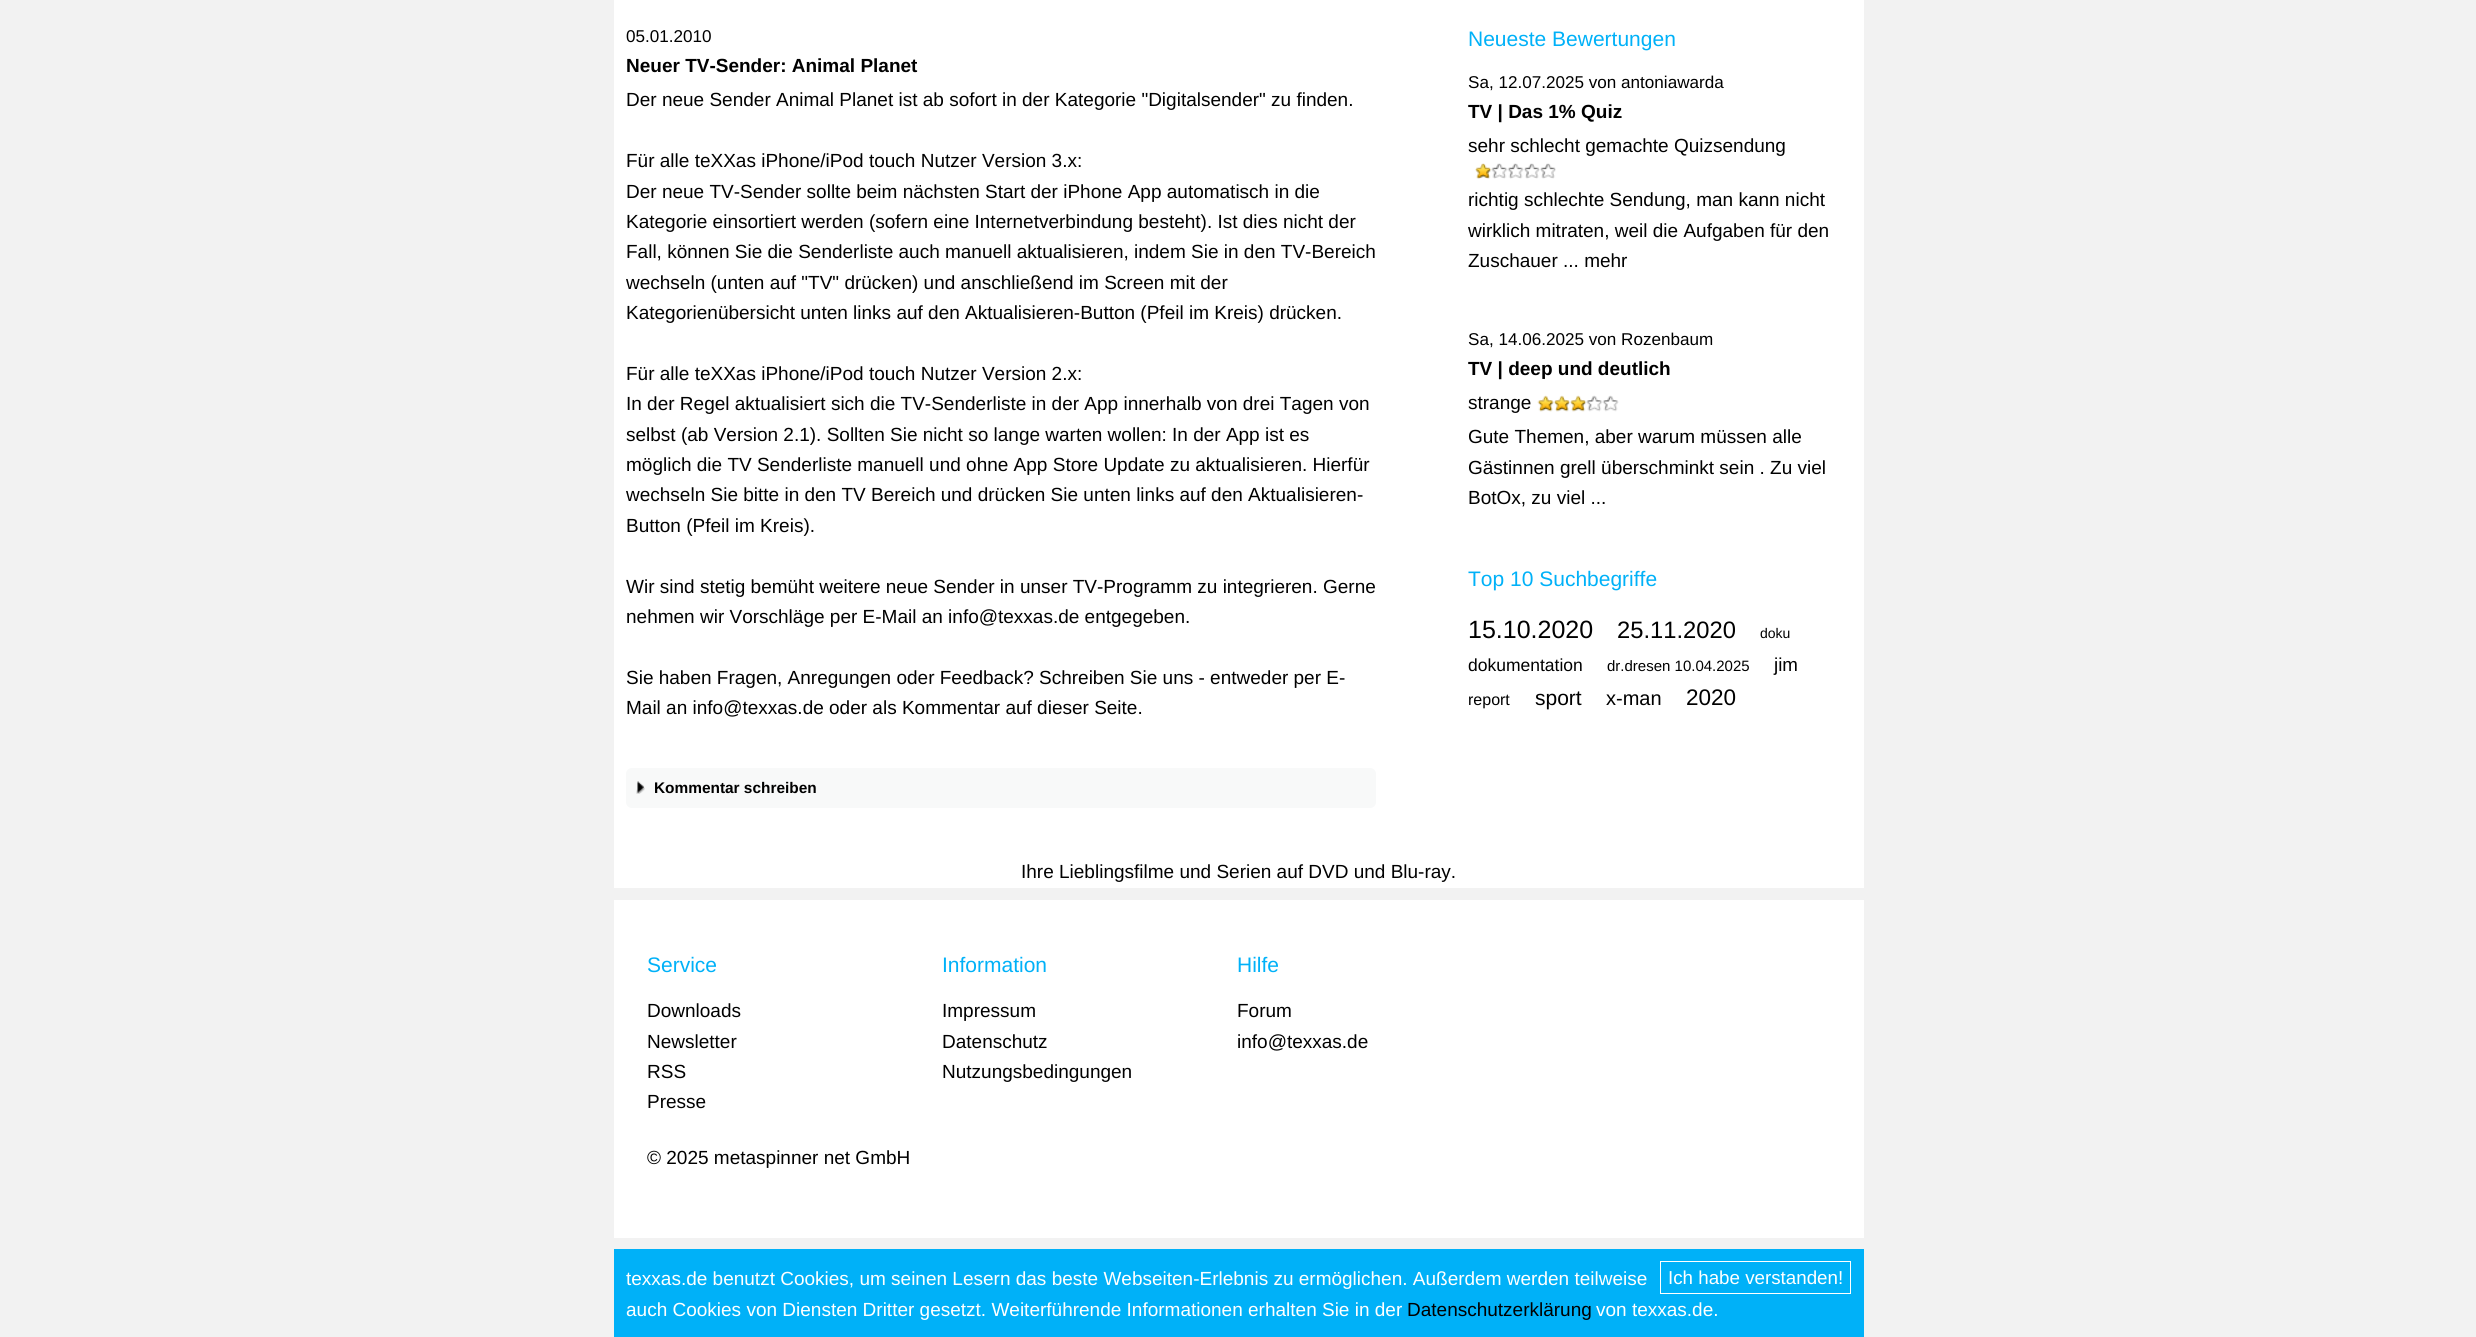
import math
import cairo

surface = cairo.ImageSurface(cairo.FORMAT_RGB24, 2476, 1337)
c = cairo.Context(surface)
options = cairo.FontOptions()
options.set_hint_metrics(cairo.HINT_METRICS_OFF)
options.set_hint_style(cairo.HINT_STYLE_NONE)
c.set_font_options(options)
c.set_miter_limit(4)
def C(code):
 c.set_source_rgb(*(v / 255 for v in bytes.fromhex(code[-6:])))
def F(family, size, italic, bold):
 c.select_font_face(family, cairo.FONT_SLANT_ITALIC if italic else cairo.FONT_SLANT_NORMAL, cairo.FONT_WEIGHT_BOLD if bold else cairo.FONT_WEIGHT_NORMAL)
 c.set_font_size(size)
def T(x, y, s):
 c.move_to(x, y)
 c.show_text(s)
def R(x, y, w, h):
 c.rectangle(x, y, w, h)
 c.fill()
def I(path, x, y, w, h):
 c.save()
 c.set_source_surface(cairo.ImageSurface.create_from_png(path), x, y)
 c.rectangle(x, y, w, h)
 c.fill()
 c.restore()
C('f2f2f2')
c.paint()
C('ffffff')
R(614,0,1250,888)
F('Liberation Sans',17.1,0,0)
C('000000')
T(626,42,'05.01.2010')
F('Liberation Sans',19,0,1)
T(626,72,'Neuer TV-Sender: Animal Planet')
F('Liberation Sans',19,0,0)
T(626,106,'Der neue Sender Animal Planet ist ab sofort in der Kategorie "Digitalsender" zu finden.')
T(626,167,'Für alle teXXas iPhone/iPod touch Nutzer Version 3.x:')
T(626,198,'Der neue TV-Sender sollte beim nächsten Start der iPhone App automatisch in die')
T(626,228,'Kategorie einsortiert werden (sofern eine Internetverbindung besteht). Ist dies nicht der')
T(626,258,'Fall, können Sie die Senderliste auch manuell aktualisieren, indem Sie in den TV-Bereich')
T(626,289,'wechseln (unten auf "TV" drücken) und anschließend im Screen mit der')
T(626,319,'Kategorienübersicht unten links auf den Aktualisieren-Button (Pfeil im Kreis) drücken.')
T(626,380,'Für alle teXXas iPhone/iPod touch Nutzer Version 2.x:')
T(626,410,'In der Regel aktualisiert sich die TV-Senderliste in der App innerhalb von drei Tagen von')
T(626,441,'selbst (ab Version 2.1). Sollten Sie nicht so lange warten wollen: In der App ist es')
T(626,471,'möglich die TV Senderliste manuell und ohne App Store Update zu aktualisieren. Hierfür')
T(626,501,'wechseln Sie bitte in den TV Bereich und drücken Sie unten links auf den Aktualisieren-')
T(626,532,'Button (Pfeil im Kreis).')
T(626,593,'Wir sind stetig bemüht weitere neue Sender in unser TV-Programm zu integrieren. Gerne')
T(626,623,'nehmen wir Vorschläge per E-Mail an info@texxas.de entgegeben.')
T(626,684,'Sie haben Fragen, Anregungen oder Feedback? Schreiben Sie uns - entweder per E-')
T(626,714,'Mail an info@texxas.de oder als Kommentar auf dieser Seite.')
C('f8f9f9')
c.new_path()
c.move_to(632,768)
c.line_to(1370,768)
c.curve_to(1373.5,768,1376,770.5,1376,774)
c.line_to(1376,791)
c.line_to(626,791)
c.line_to(626,774)
c.curve_to(626,770.5,628.5,768,632,768)
c.close_path()
c.fill()
c.new_path()
c.move_to(626,791)
c.line_to(1376,791)
c.line_to(1376,802)
c.curve_to(1376,805.5,1373.5,808,1370,808)
c.line_to(632,808)
c.curve_to(628.5,808,626,805.5,626,802)
c.close_path()
c.fill()
I('1.png',636,781,9,13)
F('Liberation Sans',15.4,0,1)
C('000000')
T(654,793,'Kommentar schreiben')
F('Liberation Sans',21,0,0)
C('00b1f8')
T(1468,46,'Neueste Bewertungen')
F('Liberation Sans',17.1,0,0)
C('000000')
T(1468,88,'Sa, 12.07.2025 von antoniawarda')
F('Liberation Sans',19,0,1)
T(1468,118,'TV | Das 1% Quiz')
F('Liberation Sans',19,0,0)
T(1468,152,'sehr schlecht gemachte Quizsendung')
I('2.png',1475,163,81,16)
T(1468,206,'richtig schlechte Sendung, man kann nicht')
T(1468,237,'wirklich mitraten, weil die Aufgaben für den')
T(1468,267,'Zuschauer ... mehr')
F('Liberation Sans',17.1,0,0)
T(1468,345,'Sa, 14.06.2025 von Rozenbaum')
F('Liberation Sans',19,0,1)
T(1468,375,'TV | deep und deutlich')
F('Liberation Sans',19,0,0)
T(1468,409,'strange')
I('3.png',1537,395,82,17)
T(1468,443,'Gute Themen, aber warum müssen alle')
T(1468,474,'Gästinnen grell überschminkt sein . Zu viel')
T(1468,504,'BotOx, zu viel ...')
F('Liberation Sans',21,0,0)
C('00b1f8')
T(1468,586,'Top 10 Suchbegriffe')
F('Liberation Sans',25,0,0)
C('000000')
T(1468,638,'15.10.2020')
F('Liberation Sans',23.75,0,0)
T(1617,638,'25.11.2020')
F('Liberation Sans',14,0,0)
T(1760,638,'doku')
F('Liberation Sans',17.5,0,0)
T(1468,671,'dokumentation')
F('Liberation Sans',15,0,0)
T(1607,671,'dr.dresen 10.04.2025')
F('Liberation Sans',18.75,0,0)
T(1774,671,'jim')
F('Liberation Sans',16,0,0)
T(1468,705,'report')
F('Liberation Sans',21,0,0)
T(1535,705,'sport')
F('Liberation Sans',20,0,0)
T(1606,705,'x-man')
F('Liberation Sans',22.5,0,0)
T(1686,705,'2020')
F('Liberation Sans',19,0,0)
T(1021,878,'Ihre Lieblingsfilme und Serien auf DVD und Blu-ray.')
C('ffffff')
R(614,900,1250,338)
F('Liberation Sans',21,0,0)
C('00b1f8')
T(647,972,'Service')
F('Liberation Sans',19,0,0)
C('000000')
T(647,1017,'Downloads')
T(647,1048,'Newsletter')
T(647,1078,'RSS')
T(647,1108,'Presse')
F('Liberation Sans',21,0,0)
C('00b1f8')
T(942,972,'Information')
F('Liberation Sans',19,0,0)
C('000000')
T(942,1017,'Impressum')
T(942,1048,'Datenschutz')
T(942,1078,'Nutzungsbedingungen')
F('Liberation Sans',21,0,0)
C('00b1f8')
T(1237,972,'Hilfe')
F('Liberation Sans',19,0,0)
C('000000')
T(1237,1017,'Forum')
T(1237,1048,'info@texxas.de')
T(647,1164,'© 2025 metaspinner net GmbH')
C('00b1f8')
R(614,1249,1250,88)
C('ffffff')
T(626,1285,'texxas.de benutzt Cookies, um seinen Lesern das beste Webseiten-Erlebnis zu ermöglichen. Außerdem werden teilweise')
T(626,1316,'auch Cookies von Diensten Dritter gesetzt. Weiterführende Informationen erhalten Sie in der')
C('000000')
T(1407,1316,'Datenschutzerklärung')
C('ffffff')
T(1596,1316,'von texxas.de.')
c.rectangle(1660.5,1261.5,190,32)
c.set_line_width(1)
c.stroke()
F('Liberation Sans',18.75,0,0)
T(1668,1284,'Ich habe verstanden!')
surface.write_to_png('o.png')
